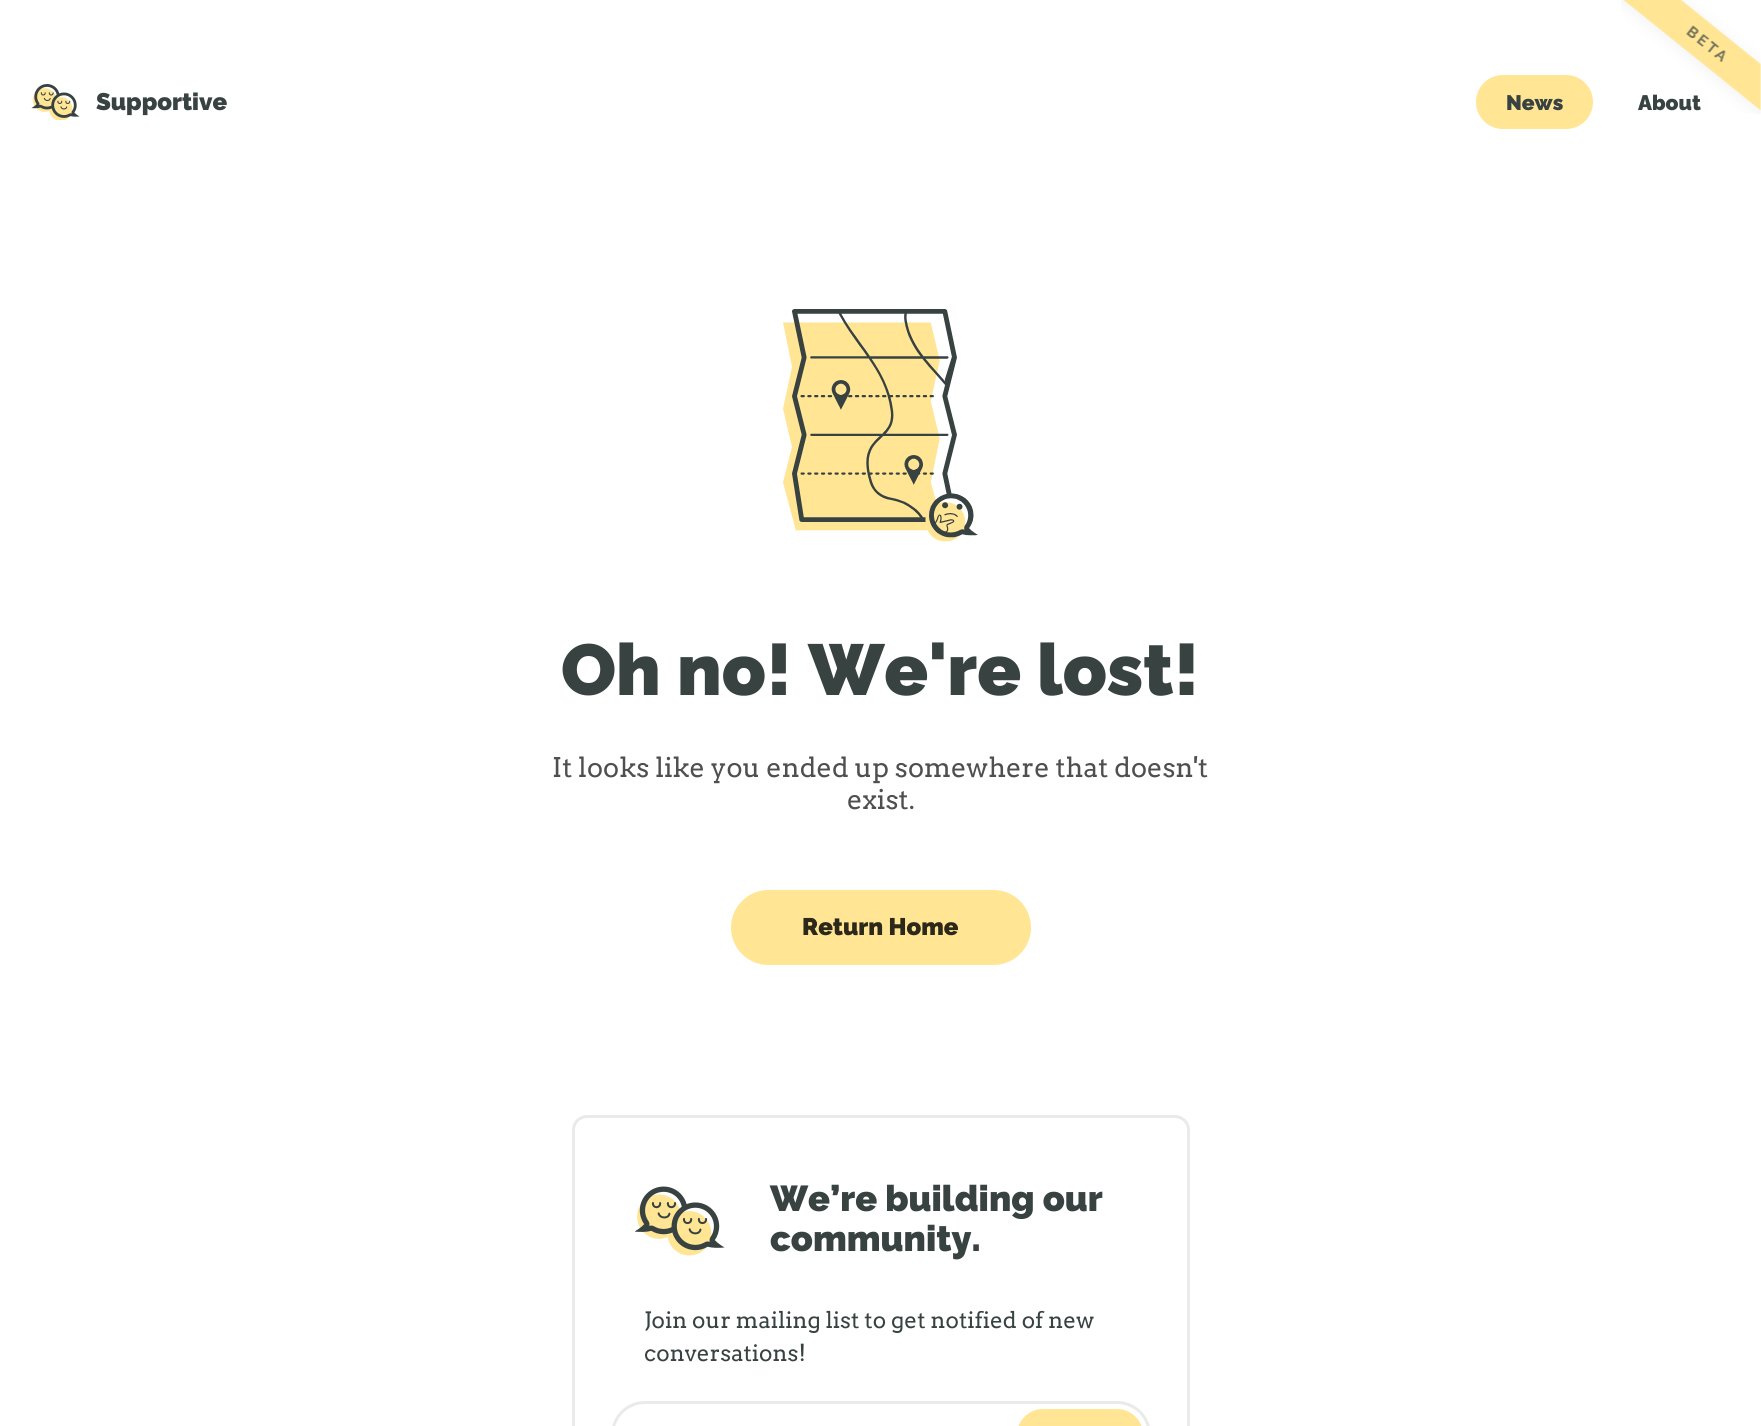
import math
import cairo

surface = cairo.ImageSurface(cairo.FORMAT_RGB24, 1761, 1426)
c = cairo.Context(surface)
options = cairo.FontOptions()
options.set_hint_metrics(cairo.HINT_METRICS_OFF)
options.set_hint_style(cairo.HINT_STYLE_NONE)
c.set_font_options(options)
c.set_miter_limit(4)
def C(code):
 c.set_source_rgb(*(v / 255 for v in bytes.fromhex(code[-6:])))
def F(family, size, italic, bold):
 c.select_font_face(family, cairo.FONT_SLANT_ITALIC if italic else cairo.FONT_SLANT_NORMAL, cairo.FONT_WEIGHT_BOLD if bold else cairo.FONT_WEIGHT_NORMAL)
 c.set_font_size(size)
def T(x, y, s):
 c.move_to(x, y)
 c.show_text(s)
def Q(x, y, w, h, r):
 c.new_sub_path()
 for i, (u, v) in enumerate([(x + w - r, y + h - r), (x + r, y + h - r), (x + r, y + r), (x + w - r, y + r)]):
  c.arc(u, v, r, i * math.pi / 2, (i + 1) * math.pi / 2)
 c.close_path()
def I(path, x, y, w, h):
 c.save()
 c.set_source_surface(cairo.ImageSurface.create_from_png(path), x, y)
 c.rectangle(x, y, w, h)
 c.fill()
 c.restore()
C('ffffff')
c.paint()
F('Raleway Black',21,0,0)
C('384341')
T(1638,110,'About')
I('1.png',1621,0,140,114)
I('2.png',31,84,49,36)
F('Raleway Black',24,0,0)
T(96,110,'Supportive')
C('ffe594')
Q(1476,75,117,54,27)
c.fill()
F('Raleway Black',21,0,0)
C('384341')
T(1506,110,'News')
I('3.png',783,309,195,233)
F('Raleway Black',72,0,0)
T(561,695,'Oh no! We\'re lost!')
F('Arvo',27,0,0)
C('4f4f4f')
T(552,777,'It looks like you ended up somewhere that doesn\'t')
T(847,809,'exist.')
C('ffe594')
Q(731,890,300,75,37.5)
c.fill()
F('Raleway Black',24,0,0)
C('2c281a')
T(802,935,'Return Home')
Q(573.5,1116.5,615,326,13.5)
C('eaeae8')
c.set_line_width(3)
c.stroke()
I('4.png',635,1186,90,70)
F('Raleway Black',36,0,0)
C('384341')
T(770,1211,'We’re building our')
T(770,1251,'community.')
F('Arvo',22.5,0,0)
T(644,1328,'Join our mailing list to get notified of new')
T(644,1361,'conversations!')
Q(612.5,1402.5,537,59,32.5)
C('eaeae8')
c.stroke()
C('ffe594')
Q(1017,1409,126,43,26)
c.fill()
surface.write_to_png('o.png')
